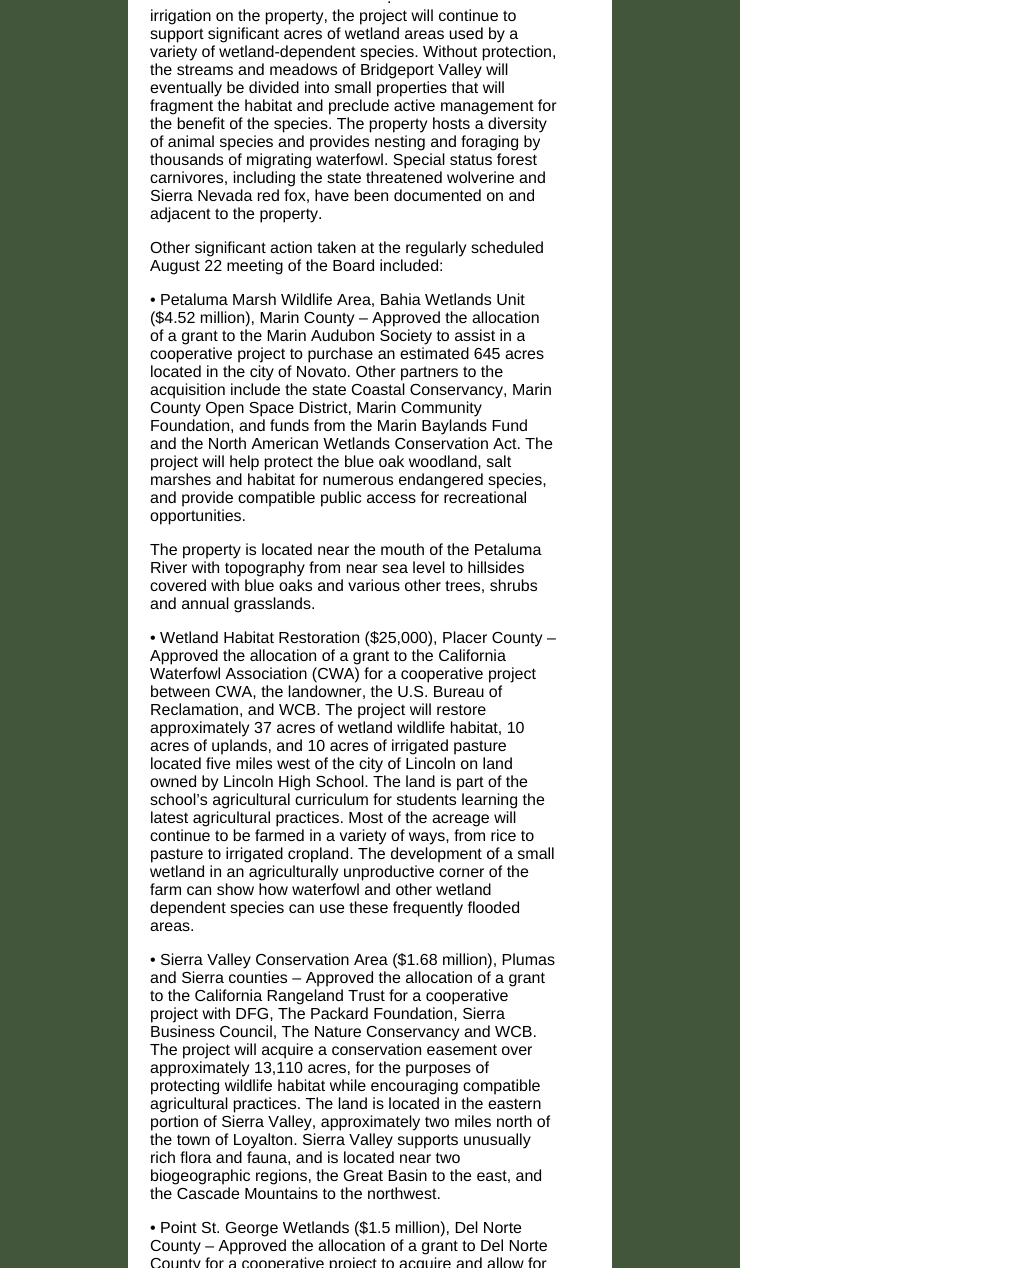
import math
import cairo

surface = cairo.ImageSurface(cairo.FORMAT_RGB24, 1018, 1268)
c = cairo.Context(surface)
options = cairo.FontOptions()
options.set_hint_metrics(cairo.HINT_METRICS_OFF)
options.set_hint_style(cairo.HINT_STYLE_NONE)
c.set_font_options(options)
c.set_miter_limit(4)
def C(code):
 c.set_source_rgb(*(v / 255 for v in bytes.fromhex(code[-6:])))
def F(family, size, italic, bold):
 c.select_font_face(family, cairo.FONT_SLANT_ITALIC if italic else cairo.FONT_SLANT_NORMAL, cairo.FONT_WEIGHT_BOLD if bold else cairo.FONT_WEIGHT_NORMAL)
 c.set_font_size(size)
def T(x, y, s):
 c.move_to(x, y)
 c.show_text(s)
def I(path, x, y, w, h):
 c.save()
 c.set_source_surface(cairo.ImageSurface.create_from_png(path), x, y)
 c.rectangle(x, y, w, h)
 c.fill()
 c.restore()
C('ffffff')
c.paint()
I('1.png',0,0,740,1268)
F('Liberation Sans',16,0,0)
C('000000')
T(387,3,'.')
T(150,21,'irrigation on the property, the project will continue to')
T(150,39,'support significant acres of wetland areas used by a')
T(150,57,'variety of wetland-dependent species. Without protection,')
T(150,75,'the streams and meadows of Bridgeport Valley will')
T(150,93,'eventually be divided into small properties that will')
T(150,111,'fragment the habitat and preclude active management for')
T(150,129,'the benefit of the species. The property hosts a diversity')
T(150,147,'of animal species and provides nesting and foraging by')
T(150,165,'thousands of migrating waterfowl. Special status forest')
T(150,183,'carnivores, including the state threatened wolverine and')
T(150,201,'Sierra Nevada red fox, have been documented on and')
T(150,219,'adjacent to the property.')
T(150,253,'Other significant action taken at the regularly scheduled')
T(150,271,'August 22 meeting of the Board included:')
T(150,305,'• Petaluma Marsh Wildlife Area, Bahia Wetlands Unit')
T(150,323,'($4.52 million), Marin County – Approved the allocation')
T(150,341,'of a grant to the Marin Audubon Society to assist in a')
T(150,359,'cooperative project to purchase an estimated 645 acres')
T(150,377,'located in the city of Novato. Other partners to the')
T(150,395,'acquisition include the state Coastal Conservancy, Marin')
T(150,413,'County Open Space District, Marin Community')
T(150,431,'Foundation, and funds from the Marin Baylands Fund')
T(150,449,'and the North American Wetlands Conservation Act. The')
T(150,467,'project will help protect the blue oak woodland, salt')
T(150,485,'marshes and habitat for numerous endangered species,')
T(150,503,'and provide compatible public access for recreational')
T(150,521,'opportunities.')
T(150,555,'The property is located near the mouth of the Petaluma')
T(150,573,'River with topography from near sea level to hillsides')
T(150,591,'covered with blue oaks and various other trees, shrubs')
T(150,609,'and annual grasslands.')
T(150,643,'• Wetland Habitat Restoration ($25,000), Placer County –')
T(150,661,'Approved the allocation of a grant to the California')
T(150,679,'Waterfowl Association (CWA) for a cooperative project')
T(150,697,'between CWA, the landowner, the U.S. Bureau of')
T(150,715,'Reclamation, and WCB. The project will restore')
T(150,733,'approximately 37 acres of wetland wildlife habitat, 10')
T(150,751,'acres of uplands, and 10 acres of irrigated pasture')
T(150,769,'located five miles west of the city of Lincoln on land')
T(150,787,'owned by Lincoln High School. The land is part of the')
T(150,805,'school’s agricultural curriculum for students learning the')
T(150,823,'latest agricultural practices. Most of the acreage will')
T(150,841,'continue to be farmed in a variety of ways, from rice to')
T(150,859,'pasture to irrigated cropland. The development of a small')
T(150,877,'wetland in an agriculturally unproductive corner of the')
T(150,895,'farm can show how waterfowl and other wetland')
T(150,913,'dependent species can use these frequently flooded')
T(150,931,'areas.')
T(150,965,'• Sierra Valley Conservation Area ($1.68 million), Plumas')
T(150,983,'and Sierra counties – Approved the allocation of a grant')
T(150,1001,'to the California Rangeland Trust for a cooperative')
T(150,1019,'project with DFG, The Packard Foundation, Sierra')
T(150,1037,'Business Council, The Nature Conservancy and WCB.')
T(150,1055,'The project will acquire a conservation easement over')
T(150,1073,'approximately 13,110 acres, for the purposes of')
T(150,1091,'protecting wildlife habitat while encouraging compatible')
T(150,1109,'agricultural practices. The land is located in the eastern')
T(150,1127,'portion of Sierra Valley, approximately two miles north of')
T(150,1145,'the town of Loyalton. Sierra Valley supports unusually')
T(150,1163,'rich flora and fauna, and is located near two')
T(150,1181,'biogeographic regions, the Great Basin to the east, and')
T(150,1199,'the Cascade Mountains to the northwest.')
T(150,1233,'• Point St. George Wetlands ($1.5 million), Del Norte')
T(150,1251,'County – Approved the allocation of a grant to Del Norte')
T(150,1269,'County for a cooperative project to acquire and allow for')
surface.write_to_png('o.png')
